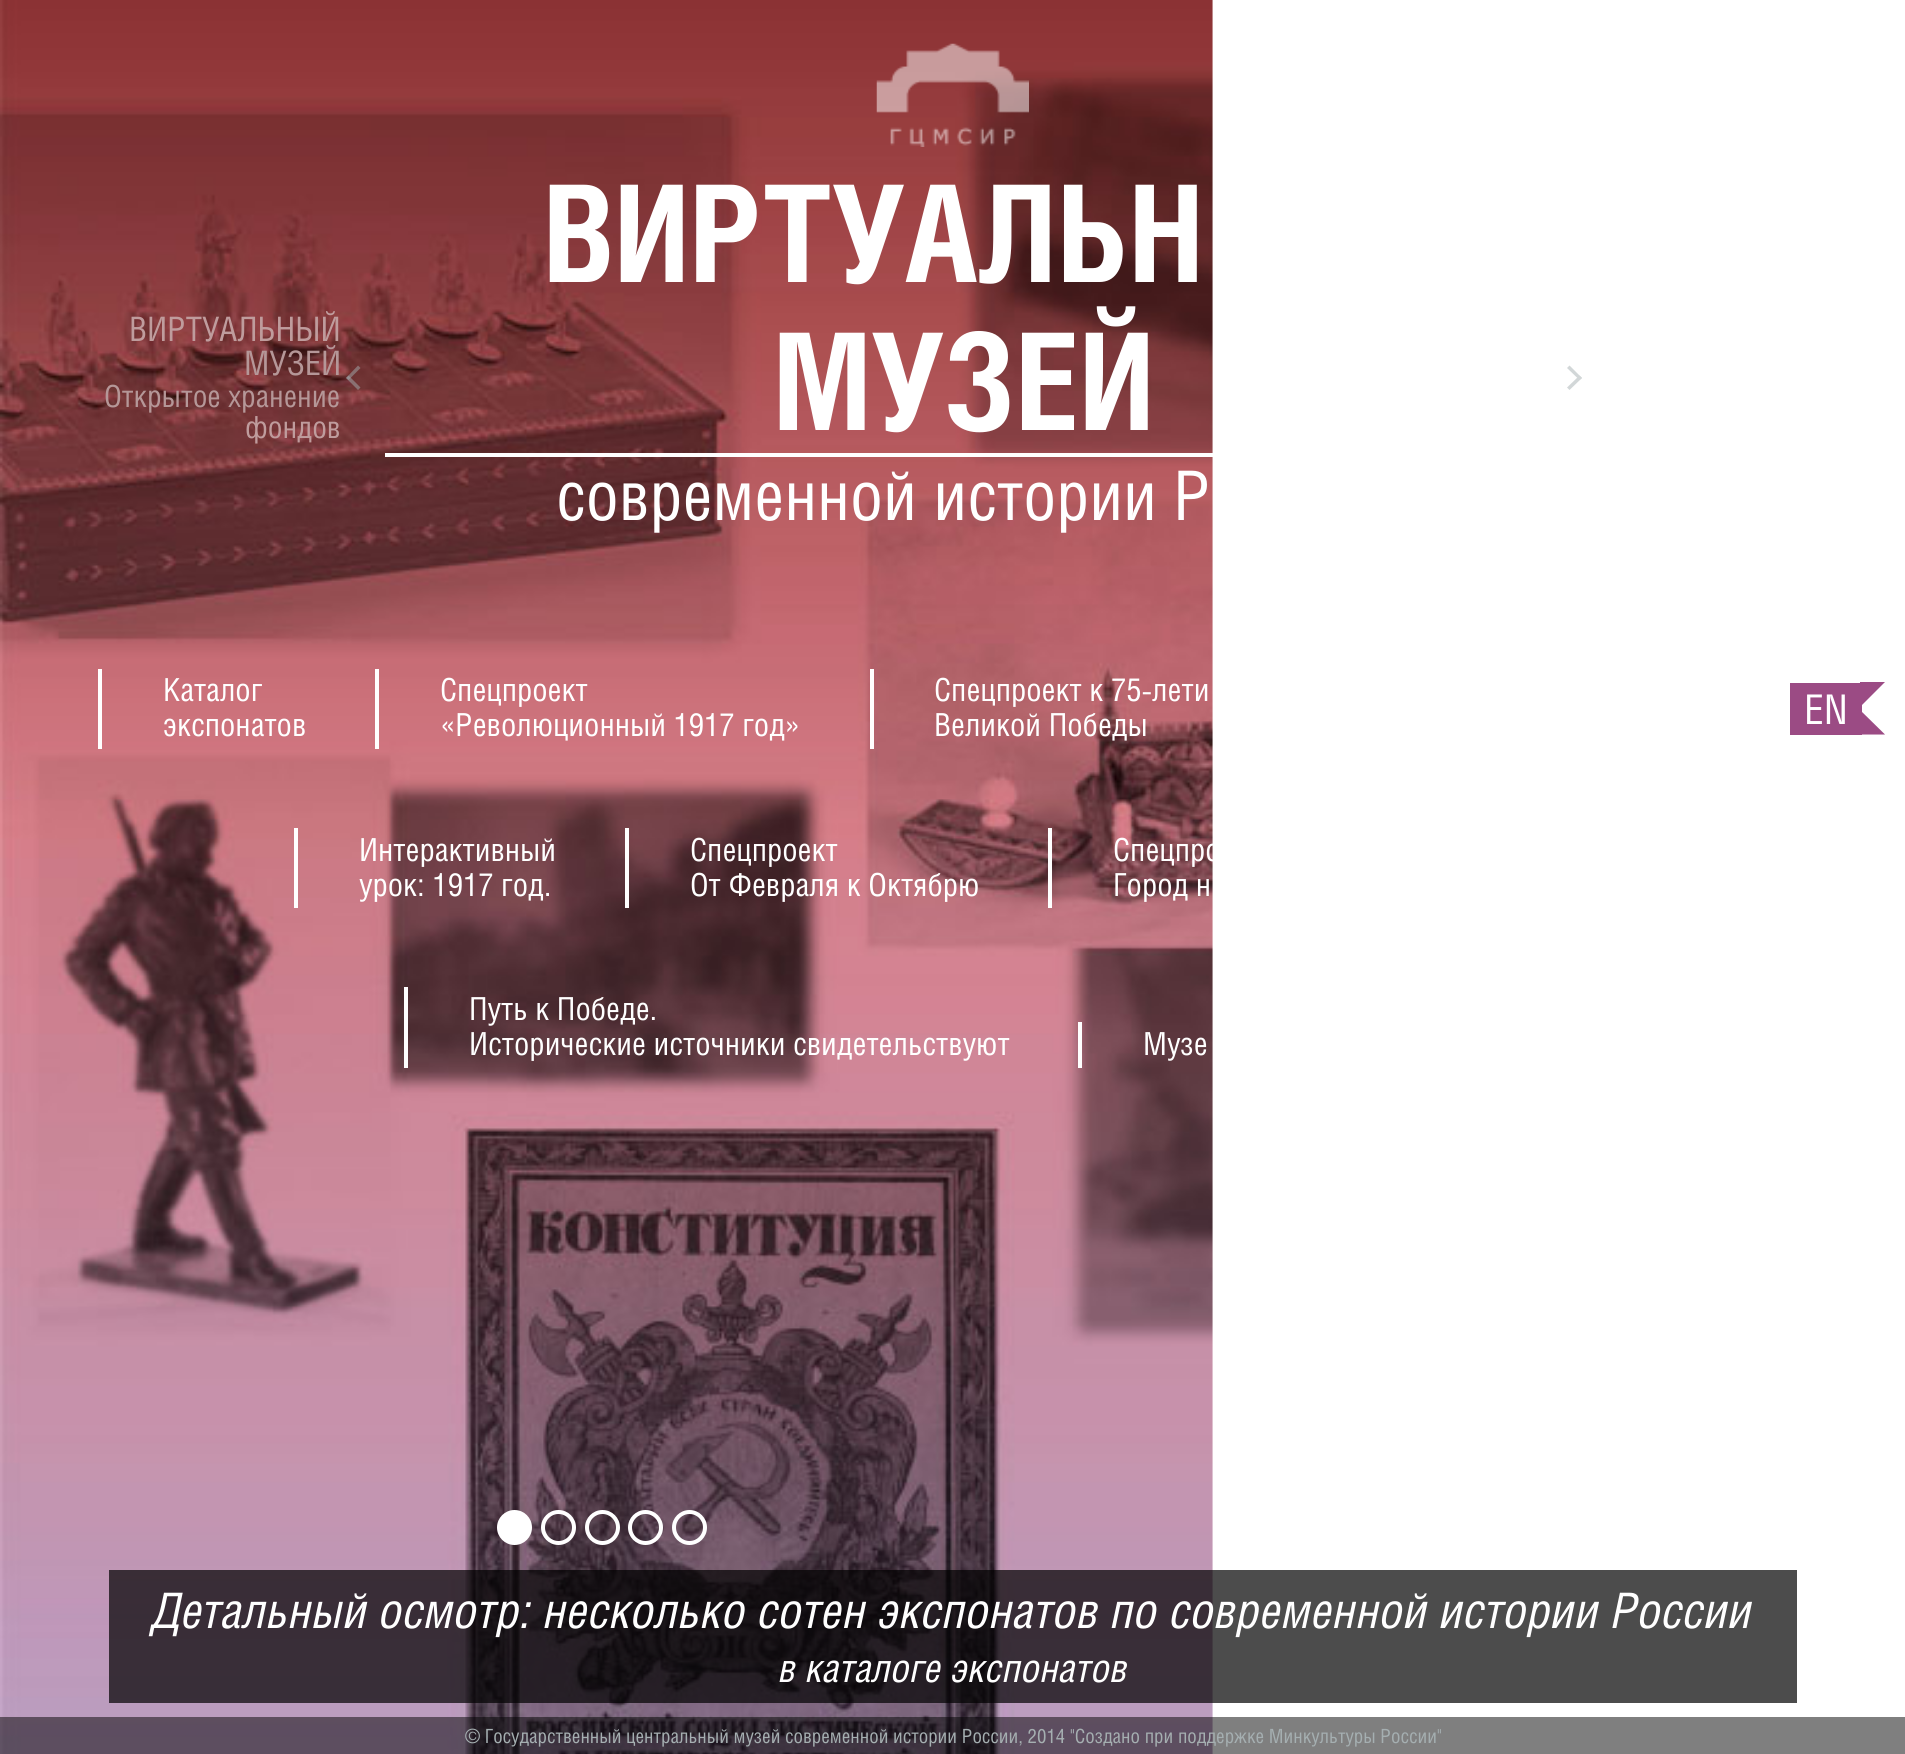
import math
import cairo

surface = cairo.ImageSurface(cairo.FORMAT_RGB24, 1905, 1754)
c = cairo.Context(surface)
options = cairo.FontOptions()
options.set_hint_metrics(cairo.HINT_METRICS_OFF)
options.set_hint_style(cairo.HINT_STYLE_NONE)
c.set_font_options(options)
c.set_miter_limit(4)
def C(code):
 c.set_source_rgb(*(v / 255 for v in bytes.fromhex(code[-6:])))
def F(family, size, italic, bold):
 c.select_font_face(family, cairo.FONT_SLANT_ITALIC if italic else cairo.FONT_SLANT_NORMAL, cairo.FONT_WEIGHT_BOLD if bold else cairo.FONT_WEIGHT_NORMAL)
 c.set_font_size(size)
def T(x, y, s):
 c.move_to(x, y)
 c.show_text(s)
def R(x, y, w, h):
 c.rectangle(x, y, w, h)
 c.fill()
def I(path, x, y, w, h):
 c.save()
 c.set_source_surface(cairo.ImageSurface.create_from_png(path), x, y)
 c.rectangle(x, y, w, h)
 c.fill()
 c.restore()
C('ffffff')
c.paint()
I('2.png',0,0,1213,1754)
I('1.png',876,43,153,104)
F('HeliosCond',33.75,0,0)
C('bf9c9d')
T(129,341,'ВИРТУАЛЬНЫЙ')
C('b59798')
T(244,375,'МУЗЕЙ')
F('HeliosCond',30.5,0,0)
T(104,407,'Открытое хранение')
C('bf9c9d')
T(245,438,'фондов')
c.set_source_rgba(0.647,0.686,0.694,0.5)
c.new_path()
c.move_to(346,378)
c.line_to(358,365.5)
c.line_to(360.5,368)
c.line_to(348.5,380)
c.close_path()
c.fill()
c.new_path()
c.move_to(346,378)
c.line_to(348.5,375.5)
c.line_to(360.5,387.5)
c.line_to(358,390)
c.close_path()
c.fill()
C('ffffff')
R(385,453,828,4)
F('HeliosCond',134.75,0,1)
T(543,282,'ВИРТУАЛЬН')
T(773,430,'МУЗЕЙ')
F('HeliosCond',68.5,0,0)
T(556,520,'современной истории Р')
C('d2d7d8')
c.new_path()
c.move_to(1582,378)
c.line_to(1569.5,390)
c.line_to(1567,387.5)
c.line_to(1579.5,375.5)
c.close_path()
c.fill()
c.new_path()
c.move_to(1582,378)
c.line_to(1579.5,380)
c.line_to(1567,368)
c.line_to(1569.5,365.5)
c.close_path()
c.fill()
C('ffffff')
R(98,669,4,80)
F('HeliosCond',31.8,0,0)
T(163,701,'Каталог')
T(163,736,'экспонатов')
R(375,669,4,80)
T(440,701,'Спецпроект')
T(440,736,'«Революционный 1917 год»')
R(870,669,4,80)
T(934,701,'Спецпроект к 75-лети')
T(934,736,'Великой Победы')
R(294,828,4,80)
T(359,861,'Интерактивный')
T(359,896,'урок: 1917 год.')
R(625,828,4,80)
T(690,861,'Спецпроект')
T(690,896,'От Февраля к Октябрю')
R(1048,828,4,80)
T(1113,861,'Спецпро')
T(1113,896,'Город н')
R(404,987,4,81)
T(469,1020,'Путь к Победе.')
T(469,1055,'Исторические источники свидетельствуют')
R(1078,1022,4,46)
T(1143,1055,'Музе')
C('9b4b84')
R(1790,683,72,52)
F('HeliosCond',41,0,0)
C('ffffff')
T(1804,724,'EN')
C('9b4b84')
c.new_path()
c.move_to(1885,682)
c.line_to(1860,707)
c.line_to(1860,682)
c.close_path()
c.move_to(1860,710)
c.line_to(1885,734.5)
c.line_to(1860,734.5)
c.close_path()
c.fill()
C('ffffff')
c.arc(514.5,1527.5,15.5,0,2 * math.pi)
c.fill_preserve()
c.set_line_width(4)
c.stroke()
c.arc(558.5,1527.5,15.5,0,2 * math.pi)
c.stroke()
c.arc(602.5,1527.5,15.5,0,2 * math.pi)
c.stroke()
c.arc(645.5,1527.5,15.5,0,2 * math.pi)
c.stroke()
c.arc(689.5,1527.5,15.5,0,2 * math.pi)
c.stroke()
c.set_source_rgba(0,0,0,0.7)
R(109,1570,1688,133)
F('HeliosCond',49,1,0)
C('ffffff')
T(152,1628,'Детальный осмотр: несколько сотен экспонатов по современной истории России')
F('HeliosCond',39.25,1,0)
T(779,1682,'в каталоге экспонатов')
c.set_source_rgba(0,0,0,0.5)
R(0,1717,1905,37)
F('HeliosCond',19.6,0,0)
C('a5afb1')
T(465,1743,'© Государственный центральный музей современной истории России, 2014 "Создано при поддержке Минкультуры России"')
surface.write_to_png('o.png')
